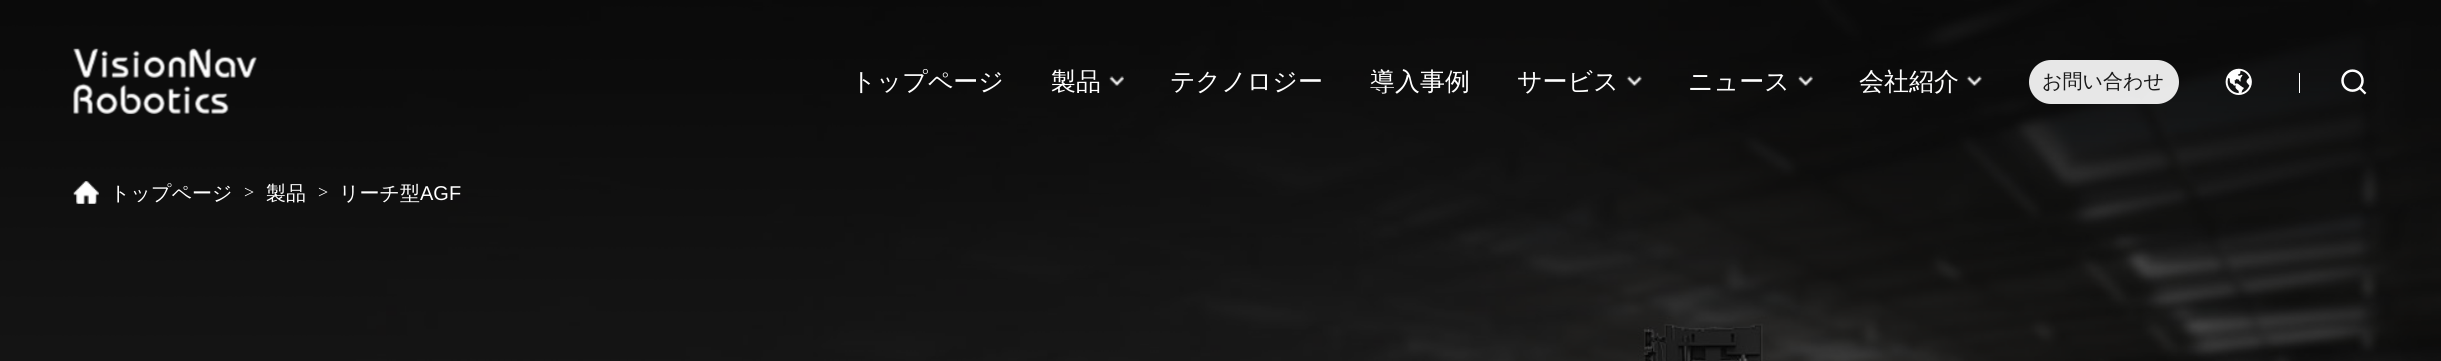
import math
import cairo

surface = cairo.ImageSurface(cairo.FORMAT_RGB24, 2441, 361)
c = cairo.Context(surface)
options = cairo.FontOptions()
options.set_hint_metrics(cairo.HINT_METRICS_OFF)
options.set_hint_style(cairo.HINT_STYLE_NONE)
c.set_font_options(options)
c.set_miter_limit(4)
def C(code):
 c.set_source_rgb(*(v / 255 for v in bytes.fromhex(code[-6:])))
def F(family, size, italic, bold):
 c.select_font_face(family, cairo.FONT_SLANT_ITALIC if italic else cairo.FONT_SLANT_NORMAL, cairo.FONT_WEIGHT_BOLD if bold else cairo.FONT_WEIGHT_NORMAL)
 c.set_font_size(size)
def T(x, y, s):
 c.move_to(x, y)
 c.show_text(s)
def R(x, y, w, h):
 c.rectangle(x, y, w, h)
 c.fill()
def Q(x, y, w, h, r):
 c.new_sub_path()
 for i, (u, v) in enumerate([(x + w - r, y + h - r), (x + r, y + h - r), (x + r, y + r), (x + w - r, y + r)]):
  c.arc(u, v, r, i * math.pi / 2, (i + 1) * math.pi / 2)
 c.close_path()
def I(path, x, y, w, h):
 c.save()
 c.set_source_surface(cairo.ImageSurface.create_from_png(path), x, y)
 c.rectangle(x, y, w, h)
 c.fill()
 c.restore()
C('ffffff')
c.paint()
I('8.png',0,0,2441,361)
I('9.png',0,0,2441,361)
I('1.png',73,48,184,67)
F('WenQuanYi Zen Hei Medium',25,0,0)
C('ffffff')
T(851,90,'トップページ')
T(1051,90,'製品')
I('2.png',1109,76,15,10)
T(1170,90,'テクノロジー')
T(1370,90,'導入事例')
T(1517,90,'サービス')
I('3.png',1626,76,16,10)
T(1688,90,'ニュース')
I('4.png',1798,76,15,10)
T(1859,90,'会社紹介')
I('5.png',1966,76,16,10)
c.set_source_rgba(1,1,1,0.9)
Q(2029,60,150,44,22)
c.fill()
F('WenQuanYi Zen Hei Medium',20,0,0)
C('1a1a1a')
T(2042,88,'お問い合わせ')
I('6.png',2225,68,27,27)
C('ffffff')
R(2299,73,1,20)
I('7.png',2341,69,26,26)
I('10.png',73,181,26,23)
T(110,200,'トップページ')
F('Liberation Serif',18,0,0)
T(244,198,'>')
F('WenQuanYi Zen Hei Medium',20,0,0)
T(266,200,'製品')
F('Liberation Serif',18,0,0)
T(318,198,'>')
F('WenQuanYi Zen Hei Medium',20,0,0)
T(339,200,'リーチ型')
F('Liberation Sans',20,0,0)
T(420,200,'AGF')
surface.write_to_png('o.png')
